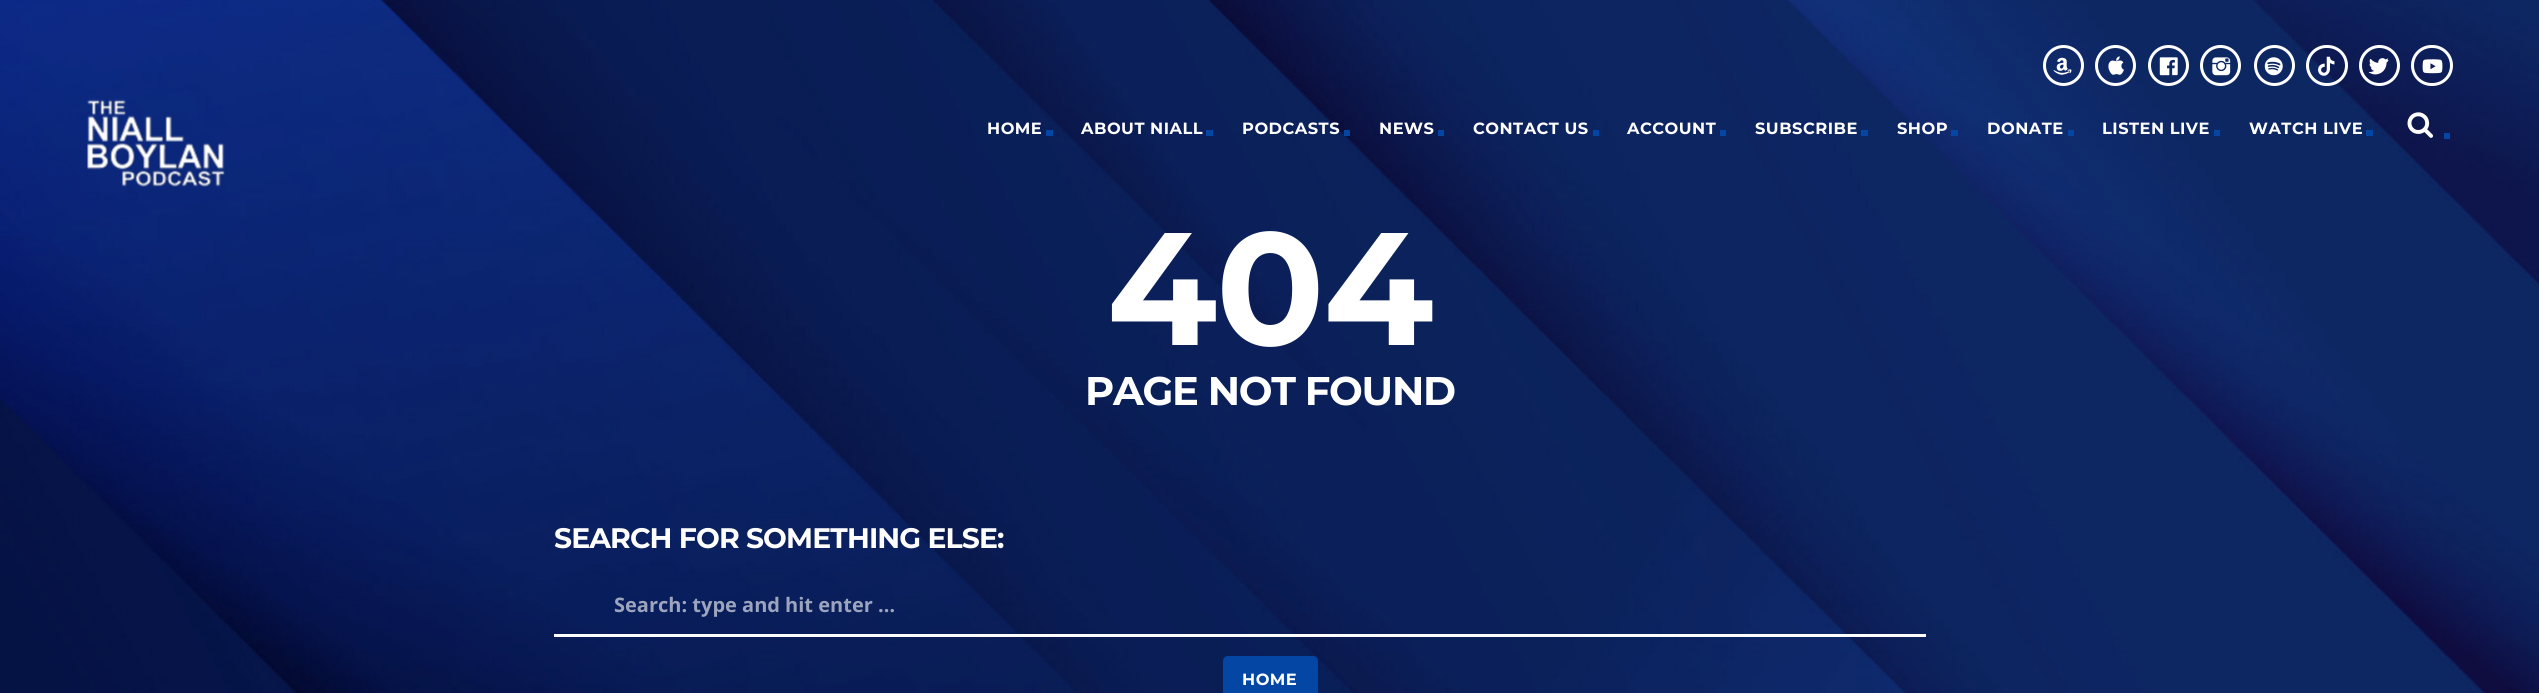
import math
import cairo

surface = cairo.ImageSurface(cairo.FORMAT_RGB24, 2539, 693)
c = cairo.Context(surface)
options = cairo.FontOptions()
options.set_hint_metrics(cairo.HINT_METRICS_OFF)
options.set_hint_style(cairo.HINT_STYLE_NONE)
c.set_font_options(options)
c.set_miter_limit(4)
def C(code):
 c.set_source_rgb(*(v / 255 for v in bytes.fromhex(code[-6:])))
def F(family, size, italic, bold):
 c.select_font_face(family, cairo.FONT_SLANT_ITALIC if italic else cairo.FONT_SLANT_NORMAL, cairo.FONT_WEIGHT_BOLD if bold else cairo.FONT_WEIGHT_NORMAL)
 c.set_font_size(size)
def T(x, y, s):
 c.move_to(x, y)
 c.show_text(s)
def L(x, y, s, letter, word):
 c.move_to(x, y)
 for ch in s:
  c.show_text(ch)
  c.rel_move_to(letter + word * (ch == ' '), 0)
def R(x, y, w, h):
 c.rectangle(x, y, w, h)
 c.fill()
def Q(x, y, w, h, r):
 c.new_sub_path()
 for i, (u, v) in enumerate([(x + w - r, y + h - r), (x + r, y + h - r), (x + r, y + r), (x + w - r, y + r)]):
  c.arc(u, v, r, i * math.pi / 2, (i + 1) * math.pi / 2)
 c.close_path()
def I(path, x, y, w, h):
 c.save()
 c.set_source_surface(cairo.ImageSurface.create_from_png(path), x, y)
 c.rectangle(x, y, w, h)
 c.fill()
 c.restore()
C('ffffff')
c.paint()
I('11.png',0,0,2539,693)
c.arc(2063.5,65.5,19,0,2 * math.pi)
C('ffffff')
c.set_line_width(3)
c.stroke()
I('1.png',2053,57,19,18)
c.arc(2115.5,65.5,19,0,2 * math.pi)
c.stroke()
I('2.png',2108,56,16,19)
c.arc(2168.5,65.5,19,0,2 * math.pi)
c.stroke()
I('3.png',2159,57,19,19)
c.arc(2220.5,65.5,19,0,2 * math.pi)
c.stroke()
I('4.png',2212,57,19,19)
c.arc(2274.5,65.5,19,0,2 * math.pi)
c.stroke()
I('5.png',2264,57,19,19)
Q(2307.5,46.5,39,38,19)
c.stroke()
I('6.png',2318,56,17,20)
c.arc(2379.5,65.5,19,0,2 * math.pi)
c.stroke()
I('7.png',2368,58,21,17)
Q(2412.5,46.5,39,38,19)
c.stroke()
I('8.png',2422,59,21,15)
I('9.png',87,99,138,88)
F('Montserrat',16.25,0,1)
L(987,134,'HOME',.5,0)
C('0346a4')
R(1046,130,7,6)
C('ffffff')
L(1081,134,'ABOUT NIALL',.5,0)
C('0346a4')
R(1206,130,7,6)
C('ffffff')
L(1242,134,'PODCASTS',.5,0)
C('0346a4')
R(1344,130,6,6)
C('ffffff')
L(1379,134,'NEWS',.5,0)
C('0346a4')
R(1438,130,6,6)
C('ffffff')
L(1473,134,'CONTACT US',.5,0)
C('0346a4')
R(1593,130,6,6)
C('ffffff')
L(1627,134,'ACCOUNT',.5,0)
C('0346a4')
R(1720,130,6,6)
C('ffffff')
L(1755,134,'SUBSCRIBE',.5,0)
C('0346a4')
R(1861,130,7,6)
C('ffffff')
L(1897,134,'SHOP',.5,0)
C('0346a4')
R(1951,130,7,6)
C('ffffff')
L(1987,134,'DONATE',.5,0)
C('0346a4')
R(2068,130,6,6)
C('ffffff')
L(2102,134,'LISTEN LIVE',.5,0)
C('0346a4')
R(2214,130,6,6)
C('ffffff')
L(2249,134,'WATCH LIVE',.5,0)
C('0346a4')
R(2366,130,7,6)
I('10.png',2407,112,26,26)
R(2444,133,6,6)
F('Montserrat',160,0,1)
C('ffffff')
L(1107,345,'404',-1.25,0)
F('Montserrat',40,0,1)
L(1085,405,'PAGE NOT FOUND',-1.25,0)
F('Montserrat',28.25,0,1)
L(554,548,'SEARCH FOR SOMETHING ELSE:',-.85,0)
R(554,634,1372,3)
F('Open Sans',20,0,1)
C('9ca5bd')
T(614,612,'Search: type and hit enter …')
C('0346a4')
Q(1223,656,95,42,5)
c.fill()
F('Montserrat',16.25,0,1)
C('ffffff')
L(1242,685,'HOME',.5,0)
surface.write_to_png('o.png')
